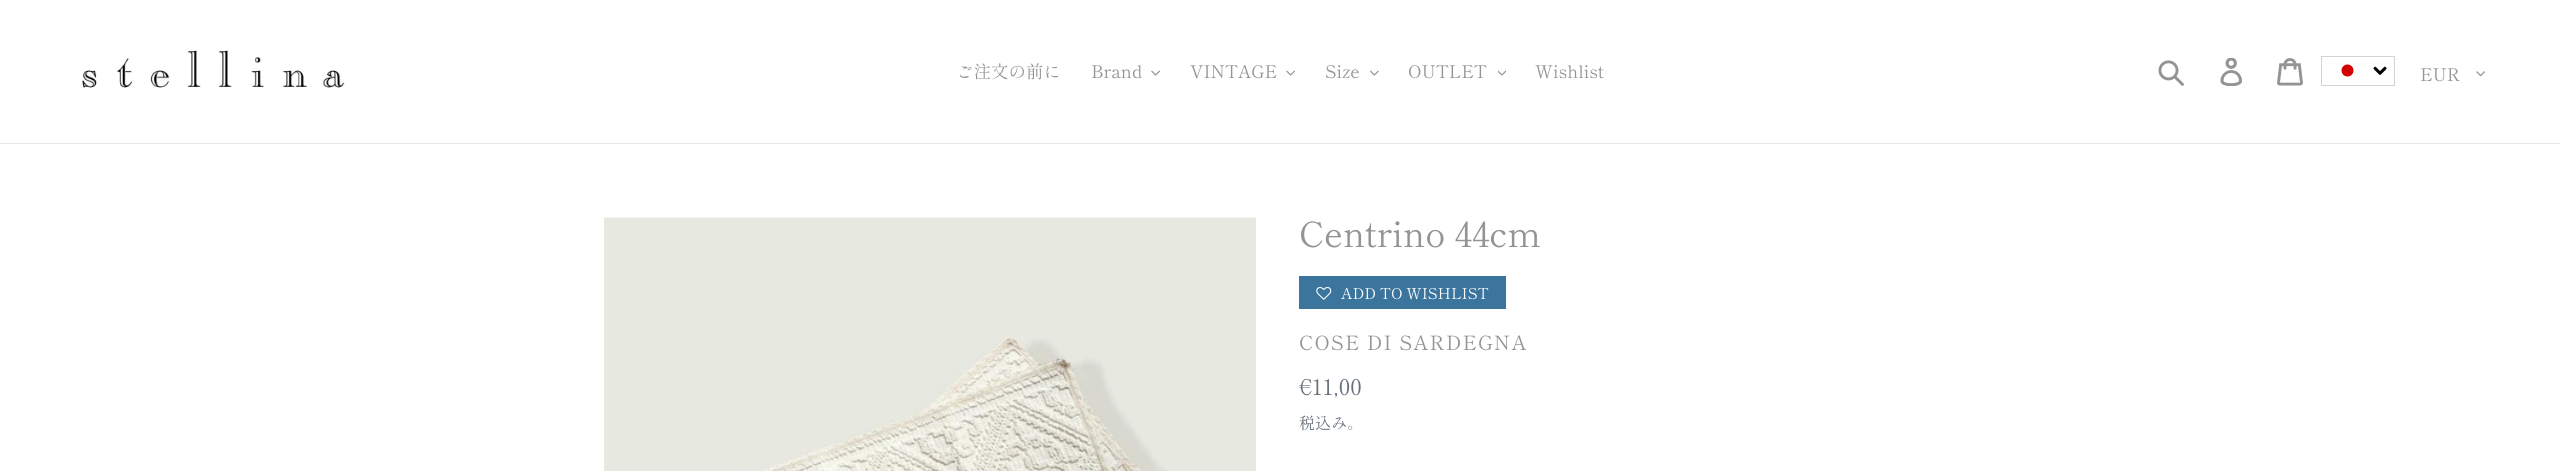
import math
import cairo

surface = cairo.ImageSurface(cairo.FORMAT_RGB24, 2560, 471)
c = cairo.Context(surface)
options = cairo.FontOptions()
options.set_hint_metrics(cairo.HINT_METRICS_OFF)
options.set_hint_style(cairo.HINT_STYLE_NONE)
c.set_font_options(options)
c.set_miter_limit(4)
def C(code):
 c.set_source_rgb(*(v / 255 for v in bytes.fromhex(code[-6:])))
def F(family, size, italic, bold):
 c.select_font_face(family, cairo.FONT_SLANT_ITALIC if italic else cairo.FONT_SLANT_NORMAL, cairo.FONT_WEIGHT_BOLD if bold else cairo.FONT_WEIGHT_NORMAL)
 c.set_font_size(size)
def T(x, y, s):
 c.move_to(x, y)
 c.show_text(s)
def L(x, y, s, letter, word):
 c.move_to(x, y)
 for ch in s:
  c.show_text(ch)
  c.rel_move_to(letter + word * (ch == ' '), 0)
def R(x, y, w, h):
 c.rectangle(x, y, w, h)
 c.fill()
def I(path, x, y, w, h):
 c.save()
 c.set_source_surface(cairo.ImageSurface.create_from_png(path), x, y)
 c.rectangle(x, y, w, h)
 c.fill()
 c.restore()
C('ffffff')
c.paint()
C('e8e9eb')
R(0,143,2560,1)
I('1.png',82,50,264,39)
F('Shippori Mincho',17.5,0,0)
C('949494')
T(956,78,'ご注文の前に')
T(1091,78,'Brand')
I('2.png',1151,70,9,6)
T(1190,78,'VINTAGE')
I('2.png',1286,70,9,6)
T(1325,78,'Size')
I('3.png',1370,70,9,6)
T(1408,78,'OUTLET')
I('4.png',1498,70,8,6)
T(1535,78,'Wishlist')
I('5.png',2158,60,26,26)
I('6.png',2220,58,22,28)
I('7.png',2277,58,26,28)
C('d30000')
c.arc(2347.5,70.5,6,0,2 * math.pi)
c.fill()
c.rectangle(2321.5,56.5,73,29)
C('d4d4d4')
c.set_line_width(1)
c.stroke()
I('8.png',2373,66,14,9)
C('949494')
T(2420,81,'EUR')
I('9.png',2476,71,9,6)
I('10.png',604,217,652,254)
F('Shippori Mincho',35,0,0)
T(1299,247,'Centrino 44cm')
C('3b749d')
R(1299,276,207,33)
I('11.png',1316,287,16,13)
F('Shippori Mincho',15,0,0)
C('ffffff')
T(1341,299,'ADD TO WISHLIST')
F('Shippori Mincho',19.75,0,0)
C('949494')
L(1299,350,'COSE DI SARDEGNA',1.25,0)
F('Shippori Mincho',22,0,0)
C('69727b')
T(1299,395,'€11,00')
F('Shippori Mincho',16,0,0)
T(1299,429,'税込み。')
surface.write_to_png('o.png')
